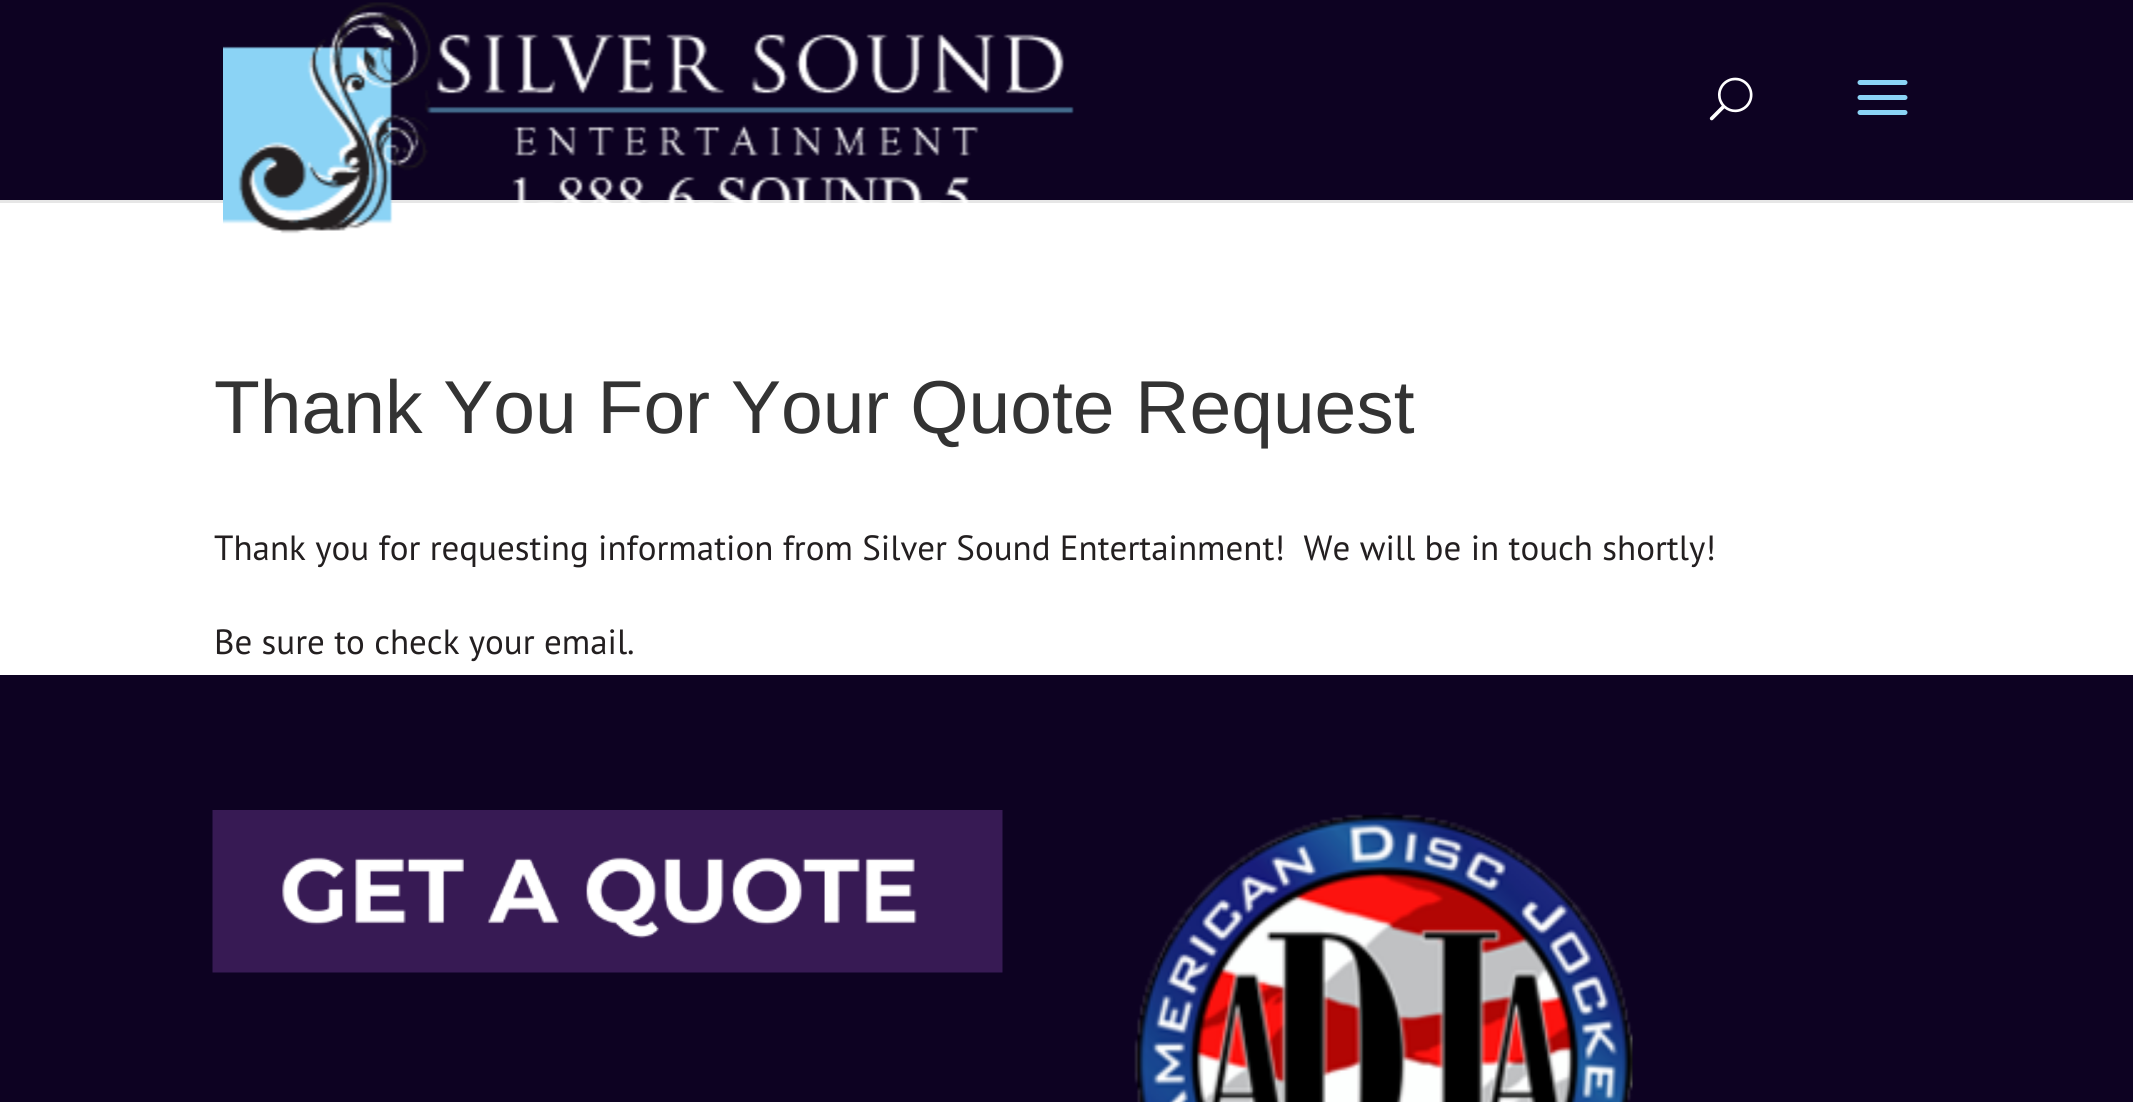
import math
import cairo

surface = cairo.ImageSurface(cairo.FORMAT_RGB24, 2133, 1102)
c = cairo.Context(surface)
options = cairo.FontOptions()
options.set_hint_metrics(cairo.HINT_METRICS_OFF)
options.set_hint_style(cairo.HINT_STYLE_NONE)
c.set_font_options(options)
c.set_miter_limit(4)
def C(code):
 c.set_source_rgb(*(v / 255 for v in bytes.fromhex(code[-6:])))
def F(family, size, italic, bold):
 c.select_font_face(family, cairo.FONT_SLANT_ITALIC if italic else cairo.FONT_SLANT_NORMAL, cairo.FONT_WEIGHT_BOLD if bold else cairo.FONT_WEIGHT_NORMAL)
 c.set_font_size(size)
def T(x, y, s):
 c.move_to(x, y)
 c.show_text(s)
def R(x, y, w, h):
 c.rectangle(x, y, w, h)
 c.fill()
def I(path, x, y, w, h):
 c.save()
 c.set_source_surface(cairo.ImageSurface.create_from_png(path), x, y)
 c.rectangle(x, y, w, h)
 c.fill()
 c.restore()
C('ffffff')
c.paint()
C('e6e6e6')
R(0,200,2133,3)
C('0d0222')
R(0,0,2133,200)
I('1.png',223,2,851,232)
I('2.png',1709,77,44,44)
I('3.png',1857,80,51,35)
F('Liberation Sans',75,0,0)
C('333333')
T(214,433,'Thank You For Your Quote Request')
F('PT Sans',35,0,0)
C('231f20')
T(214,560,'Thank you for requesting information from Silver Sound Entertainment!  We will be in touch shortly!')
T(214,654,'Be sure to check your email.')
C('0d0222')
R(0,675,2133,427)
I('4.png',212,810,791,163)
I('5.png',1134,812,499,290)
surface.write_to_png('o.png')
